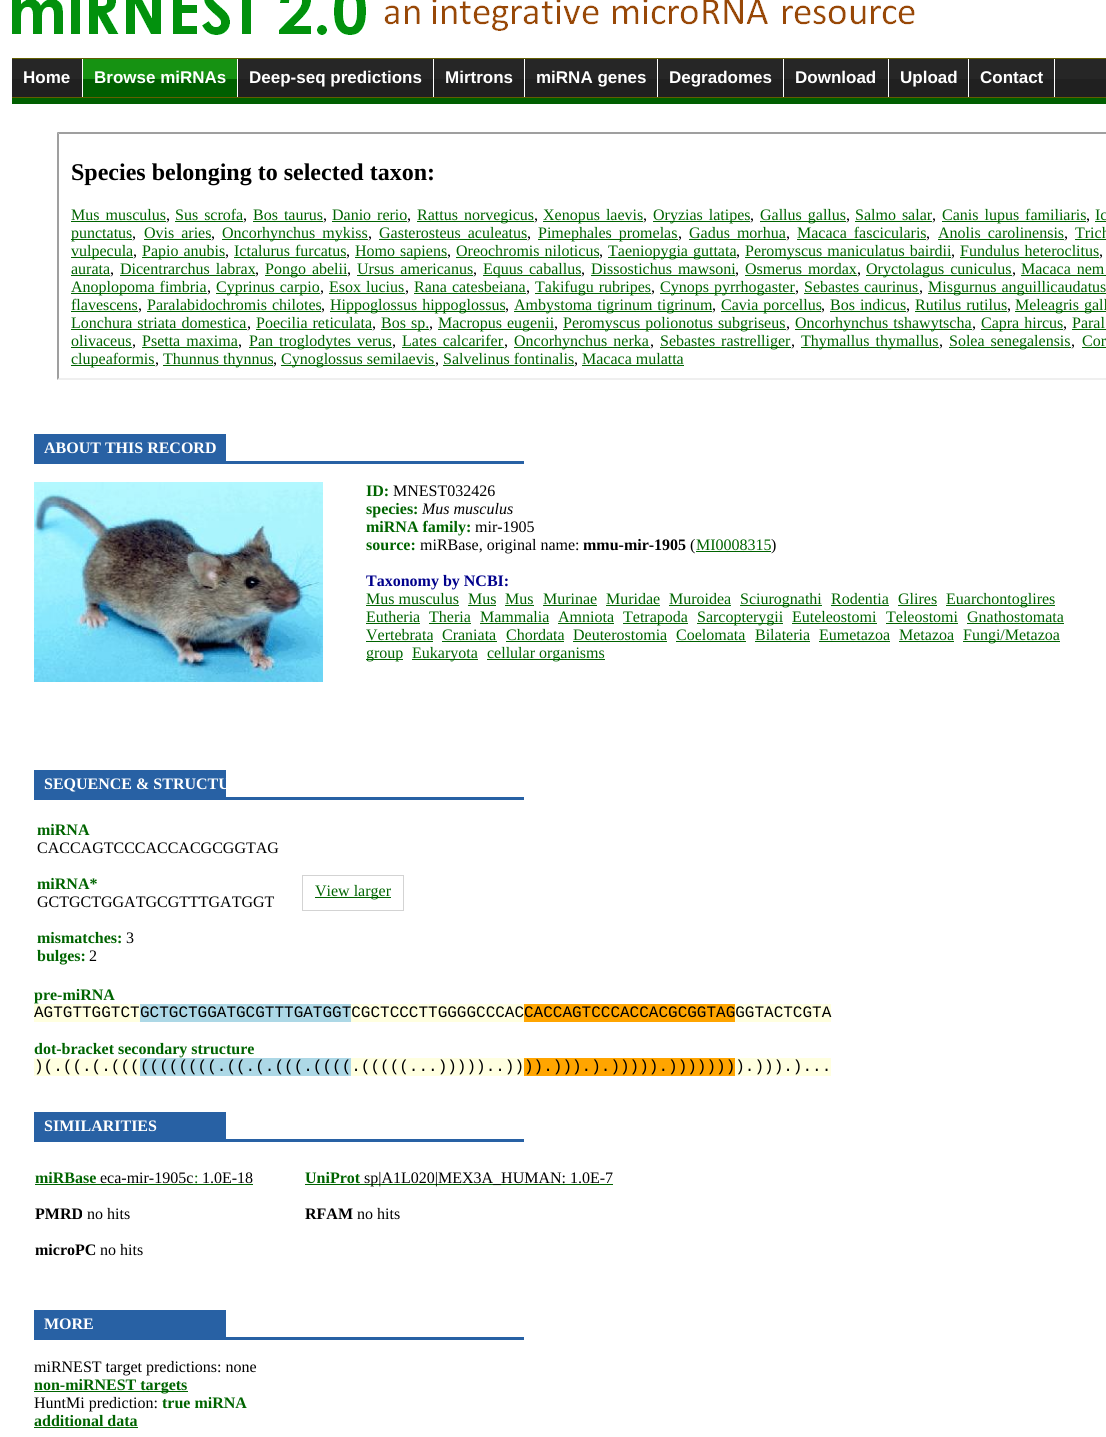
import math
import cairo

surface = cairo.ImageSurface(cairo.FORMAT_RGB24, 1106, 1437)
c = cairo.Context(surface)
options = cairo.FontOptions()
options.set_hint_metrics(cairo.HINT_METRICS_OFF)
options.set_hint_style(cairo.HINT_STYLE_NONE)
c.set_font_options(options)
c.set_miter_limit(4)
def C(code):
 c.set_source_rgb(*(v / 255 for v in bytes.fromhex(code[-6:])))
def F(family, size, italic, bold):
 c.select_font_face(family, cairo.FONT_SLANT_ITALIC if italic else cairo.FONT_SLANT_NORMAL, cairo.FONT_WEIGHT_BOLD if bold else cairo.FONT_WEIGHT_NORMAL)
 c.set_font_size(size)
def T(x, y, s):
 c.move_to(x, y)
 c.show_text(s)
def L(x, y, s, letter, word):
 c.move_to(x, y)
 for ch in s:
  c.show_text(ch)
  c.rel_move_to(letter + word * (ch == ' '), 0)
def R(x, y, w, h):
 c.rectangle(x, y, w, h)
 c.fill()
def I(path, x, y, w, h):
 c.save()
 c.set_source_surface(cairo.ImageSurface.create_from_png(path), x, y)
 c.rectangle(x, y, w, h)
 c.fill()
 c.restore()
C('ffffff')
c.paint()
I('1.png',12,0,903,35)
I('2.png',12,59,1094,38)
C('625e00')
R(12,58,1094,1)
R(12,97,1094,1)
C('ffffff')
R(82,59,1,38)
F('Liberation Sans',17,0,1)
T(23,83,'Home')
I('3.png',83,59,154,38)
R(237,59,1,38)
T(94,83,'Browse miRNAs')
R(433,59,1,38)
T(249,83,'Deep-seq predictions')
R(524,59,1,38)
T(445,83,'Mirtrons')
R(657,59,1,38)
T(536,83,'miRNA genes')
R(783,59,1,38)
T(669,83,'Degradomes')
R(888,59,1,38)
T(795,83,'Download')
R(968,59,1,38)
T(900,83,'Upload')
R(1054,59,1,38)
T(980,83,'Contact')
C('005f00')
R(12,98,1094,6)
C('9f9f9f')
c.new_path()
c.move_to(57,132)
c.line_to(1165,132)
c.line_to(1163,134)
c.line_to(59,134)
c.close_path()
c.fill()
C('efefef')
c.new_path()
c.move_to(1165,380)
c.line_to(57,380)
c.line_to(59,378)
c.line_to(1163,378)
c.close_path()
c.fill()
C('9f9f9f')
c.new_path()
c.move_to(57,380)
c.line_to(57,132)
c.line_to(59,134)
c.line_to(59,378)
c.close_path()
c.fill()
F('Liberation Serif',24,0,1)
C('000000')
T(71,180,'Species belonging to selected taxon:')
F('Liberation Serif',16,0,0)
C('006400')
L(71,220,'Mus musculus',0,2)
R(71,221,95,1)
C('000000')
T(166,220,',')
C('006400')
L(175,220,'Sus scrofa',0,2)
R(175,221,68,1)
C('000000')
T(243,220,',')
C('006400')
L(253,220,'Bos taurus',0,2)
R(253,221,70,1)
C('000000')
T(323,220,',')
C('006400')
L(332,220,'Danio rerio',0,2)
R(332,221,75,1)
C('000000')
T(407,220,',')
C('006400')
R(417,221,117,1)
L(417,220,'Rattus norvegicus',0,2)
C('000000')
T(534,220,',')
C('006400')
R(543,221,100,1)
L(543,220,'Xenopus laevis',0,2)
C('000000')
T(643,220,',')
C('006400')
R(653,221,97,1)
L(653,220,'Oryzias latipes',0,2)
C('000000')
T(750,220,',')
C('006400')
R(760,221,86,1)
L(760,220,'Gallus gallus',0,2)
C('000000')
T(846,220,',')
C('006400')
L(855,220,'Salmo salar',0,2)
R(855,221,77,1)
C('000000')
T(932,220,',')
C('006400')
R(942,221,144,1)
L(942,220,'Canis lupus familiaris',0,2)
C('000000')
T(1086,220,',')
C('006400')
T(1095,220,'Ic')
R(1095,221,11,1)
R(71,239,61,1)
T(71,238,'punctatus')
C('000000')
T(132,238,',')
C('006400')
L(144,238,'Ovis aries',0,3)
R(144,239,67,1)
C('000000')
T(211,238,',')
C('006400')
R(222,239,146,1)
L(222,238,'Oncorhynchus mykiss',0,3)
C('000000')
T(368,238,',')
C('006400')
L(379,238,'Gasterosteus aculeatus',0,3)
R(379,239,148,1)
C('000000')
T(527,238,',')
C('006400')
R(538,239,140,1)
L(538,238,'Pimephales promelas',0,3)
C('000000')
T(678,238,',')
C('006400')
L(689,238,'Gadus morhua',0,3)
R(689,239,97,1)
C('000000')
T(786,238,',')
C('006400')
L(797,238,'Macaca fascicularis',0,3)
R(797,239,129,1)
C('000000')
T(926,238,',')
C('006400')
L(938,238,'Anolis carolinensis',0,3)
R(938,239,126,1)
C('000000')
T(1064,238,',')
C('006400')
T(1075,238,'Trich')
R(1075,239,31,1)
R(71,257,62,1)
T(71,256,'vulpecula')
C('000000')
T(133,256,',')
C('006400')
R(142,257,83,1)
L(142,256,'Papio anubis',0,1)
C('000000')
T(225,256,',')
C('006400')
L(234,256,'Ictalurus furcatus',0,1)
R(234,257,112,1)
C('000000')
T(346,256,',')
C('006400')
R(355,257,92,1)
L(355,256,'Homo sapiens',0,1)
C('000000')
T(447,256,',')
C('006400')
L(456,256,'Oreochromis niloticus',0,1)
R(456,257,143,1)
C('000000')
T(599,256,',')
C('006400')
R(608,257,128,1)
L(608,256,'Taeniopygia guttata',0,1)
C('000000')
T(736,256,',')
C('006400')
R(745,257,206,1)
L(745,256,'Peromyscus maniculatus bairdii',0,1)
C('000000')
T(951,256,',')
C('006400')
L(960,256,'Fundulus heteroclitus',0,1)
R(960,257,139,1)
C('000000')
T(1099,256,',')
C('006400')
T(71,274,'aurata')
R(71,275,39,1)
C('000000')
T(110,274,',')
C('006400')
L(120,274,'Dicentrarchus labrax',0,2)
R(120,275,135,1)
C('000000')
T(255,274,',')
C('006400')
R(265,275,82,1)
L(265,274,'Pongo abelii',0,2)
C('000000')
T(347,274,',')
C('006400')
L(357,274,'Ursus americanus',0,2)
R(357,275,116,1)
C('000000')
T(473,274,',')
C('006400')
R(483,275,98,1)
L(483,274,'Equus caballus',0,2)
C('000000')
T(581,274,',')
C('006400')
L(591,274,'Dissostichus mawsoni',0,2)
R(591,275,144,1)
C('000000')
T(735,274,',')
C('006400')
L(745,274,'Osmerus mordax',0,2)
R(745,275,112,1)
C('000000')
T(857,274,',')
C('006400')
R(866,275,146,1)
L(866,274,'Oryctolagus cuniculus',0,2)
C('000000')
T(1012,274,',')
C('006400')
L(1021,274,'Macaca nem',0,2)
R(1021,275,85,1)
R(71,293,136,1)
L(71,292,'Anoplopoma fimbria',0,1)
C('000000')
T(207,292,',')
C('006400')
R(216,293,104,1)
L(216,292,'Cyprinus carpio',0,1)
C('000000')
T(320,292,',')
C('006400')
L(329,292,'Esox lucius',0,1)
R(329,293,76,1)
C('000000')
T(405,292,',')
C('006400')
L(414,292,'Rana catesbeiana',0,1)
R(414,293,112,1)
C('000000')
T(526,292,',')
C('006400')
R(535,293,116,1)
L(535,292,'Takifugu rubripes',0,1)
C('000000')
T(651,292,',')
C('006400')
R(660,293,135,1)
L(660,292,'Cynops pyrrhogaster',0,1)
C('000000')
T(795,292,',')
C('006400')
L(804,292,'Sebastes caurinus',0,1)
R(804,293,115,1)
C('000000')
T(919,292,',')
C('006400')
R(928,293,178,1)
L(928,292,'Misgurnus anguillicaudatus',0,1)
T(71,310,'flavescens')
R(71,311,67,1)
C('000000')
T(138,310,',')
C('006400')
L(147,310,'Paralabidochromis chilotes',0,1)
R(147,311,174,1)
C('000000')
T(321,310,',')
C('006400')
R(330,311,175,1)
L(330,310,'Hippoglossus hippoglossus',0,1)
C('000000')
T(505,310,',')
C('006400')
R(514,311,198,1)
L(514,310,'Ambystoma tigrinum tigrinum',0,1)
C('000000')
T(712,310,',')
C('006400')
R(721,311,100,1)
L(721,310,'Cavia porcellus',0,1)
C('000000')
T(821,310,',')
C('006400')
L(830,310,'Bos indicus',0,1)
R(830,311,76,1)
C('000000')
T(906,310,',')
C('006400')
L(915,310,'Rutilus rutilus',0,1)
R(915,311,92,1)
C('000000')
T(1007,310,',')
C('006400')
R(1015,311,91,1)
L(1015,310,'Meleagris gall',0,1)
L(71,328,'Lonchura striata domestica',0,1)
R(71,329,176,1)
C('000000')
T(247,328,',')
C('006400')
L(256,328,'Poecilia reticulata',0,1)
R(256,329,116,1)
C('000000')
T(372,328,',')
C('006400')
R(381,329,48,1)
L(381,328,'Bos sp.',0,1)
C('000000')
T(429,328,',')
C('006400')
R(438,329,116,1)
L(438,328,'Macropus eugenii',0,1)
C('000000')
T(554,328,',')
C('006400')
R(563,329,223,1)
L(563,328,'Peromyscus polionotus subgriseus',0,1)
C('000000')
T(786,328,',')
C('006400')
R(795,329,177,1)
L(795,328,'Oncorhynchus tshawytscha',0,1)
C('000000')
T(972,328,',')
C('006400')
R(981,329,82,1)
L(981,328,'Capra hircus',0,1)
C('000000')
T(1063,328,',')
C('006400')
T(1072,328,'Paral')
R(1072,329,34,1)
T(71,346,'olivaceus')
R(71,347,61,1)
C('000000')
T(132,346,',')
C('006400')
L(142,346,'Psetta maxima',0,2)
R(142,347,96,1)
C('000000')
T(238,346,',')
C('006400')
R(249,347,143,1)
L(249,346,'Pan troglodytes verus',0,2)
C('000000')
T(392,346,',')
C('006400')
L(402,346,'Lates calcarifer',0,2)
R(402,347,102,1)
C('000000')
T(504,346,',')
C('006400')
R(514,347,136,1)
L(514,346,'Oncorhynchus nerka',0,2)
C('000000')
T(650,346,',')
C('006400')
R(660,347,131,1)
L(660,346,'Sebastes rastrelliger',0,2)
C('000000')
T(791,346,',')
C('006400')
R(801,347,138,1)
L(801,346,'Thymallus thymallus',0,2)
C('000000')
T(939,346,',')
C('006400')
R(949,347,122,1)
L(949,346,'Solea senegalensis',0,2)
C('000000')
T(1071,346,',')
C('006400')
T(1082,346,'Cor')
R(1082,347,24,1)
R(71,365,84,1)
T(71,364,'clupeaformis')
C('000000')
T(155,364,',')
C('006400')
R(163,365,110,1)
T(163,364,'Thunnus thynnus')
C('000000')
T(273,364,',')
C('006400')
R(281,365,154,1)
T(281,364,'Cynoglossus semilaevis')
C('000000')
T(435,364,',')
C('006400')
T(443,364,'Salvelinus fontinalis')
R(443,365,131,1)
C('000000')
T(574,364,',')
C('006400')
T(582,364,'Macaca mulatta')
R(582,365,102,1)
C('2861a4')
R(34,434,192,30)
F('Liberation Serif',16,0,1)
C('ffffff')
T(44,453,'ABOUT THIS RECORD')
C('2861a4')
R(226,461,298,3)
I('4.png',34,482,289,200)
C('006400')
T(366,496,'ID:')
F('Liberation Serif',16,0,0)
C('000000')
T(393,496,'MNEST032426')
F('Liberation Serif',16,0,1)
C('006400')
T(366,514,'species:')
F('Liberation Serif',16,1,0)
C('000000')
T(422,514,'Mus musculus')
F('Liberation Serif',16,0,1)
C('006400')
T(366,532,'miRNA family:')
F('Liberation Serif',16,0,0)
C('000000')
T(475,532,'mir-1905')
F('Liberation Serif',16,0,1)
C('006400')
T(366,550,'source:')
F('Liberation Serif',16,0,0)
C('000000')
T(420,550,'miRBase, original name:')
F('Liberation Serif',16,0,1)
T(583,550,'mmu-mir-1905')
F('Liberation Serif',16,0,0)
T(690,550,'(')
C('006400')
R(696,551,75,1)
T(696,550,'MI0008315')
C('000000')
T(771,550,')')
F('Liberation Serif',16,0,1)
C('00008b')
T(366,586,'Taxonomy by NCBI:')
F('Liberation Serif',16,0,0)
C('006400')
T(366,604,'Mus musculus')
R(366,605,93,1)
T(468,604,'Mus')
R(468,605,28,1)
T(505,604,'Mus')
R(505,605,29,1)
T(543,604,'Murinae')
R(543,605,54,1)
T(606,604,'Muridae')
R(606,605,54,1)
T(669,604,'Muroidea')
R(669,605,62,1)
R(740,605,82,1)
T(740,604,'Sciurognathi')
T(831,604,'Rodentia')
R(831,605,58,1)
T(898,604,'Glires')
R(898,605,39,1)
R(946,605,109,1)
T(946,604,'Euarchontoglires')
T(366,622,'Eutheria')
R(366,623,54,1)
T(429,622,'Theria')
R(429,623,42,1)
T(480,622,'Mammalia')
R(480,623,69,1)
T(558,622,'Amniota')
R(558,623,56,1)
R(623,623,65,1)
T(623,622,'Tetrapoda')
R(697,623,86,1)
T(697,622,'Sarcopterygii')
T(792,622,'Euteleostomi')
R(792,623,85,1)
T(886,622,'Teleostomi')
R(886,623,72,1)
T(967,622,'Gnathostomata')
R(967,623,97,1)
T(366,640,'Vertebrata')
R(366,641,67,1)
T(442,640,'Craniata')
R(442,641,55,1)
T(506,640,'Chordata')
R(506,641,58,1)
T(573,640,'Deuterostomia')
R(573,641,94,1)
T(676,640,'Coelomata')
R(676,641,70,1)
T(755,640,'Bilateria')
R(755,641,55,1)
T(819,640,'Eumetazoa')
R(819,641,71,1)
T(899,640,'Metazoa')
R(899,641,55,1)
R(963,641,97,1)
T(963,640,'Fungi/Metazoa')
R(366,659,37,1)
T(366,658,'group')
R(412,659,66,1)
T(412,658,'Eukaryota')
R(487,659,118,1)
T(487,658,'cellular organisms')
C('2861a4')
R(34,770,192,30)
F('Liberation Serif',16,0,1)
C('ffffff')
T(44,789,'SEQUENCE & STRUCTU')
C('2861a4')
R(226,797,298,3)
C('006400')
T(37,835,'miRNA')
F('Liberation Serif',16,0,0)
C('000000')
T(37,853,'CACCAGTCCCACCACGCGGTAG')
F('Liberation Serif',16,0,1)
C('006400')
T(37,889,'miRNA*')
F('Liberation Serif',16,0,0)
C('000000')
T(37,907,'GCTGCTGGATGCGTTTGATGGT')
F('Liberation Serif',16,0,1)
C('006400')
T(37,943,'mismatches:')
F('Liberation Serif',16,0,0)
C('000000')
T(126,943,'3')
F('Liberation Serif',16,0,1)
C('006400')
T(37,961,'bulges:')
F('Liberation Serif',16,0,0)
C('000000')
T(89,961,'2')
c.rectangle(302.5,875.5,101,35)
C('d3d3d3')
c.set_line_width(1)
c.stroke()
C('006400')
R(315,897,76,1)
T(315,896,'View larger')
F('Liberation Serif',16,0,1)
T(34,1000,'pre-miRNA')
C('ffffe0')
R(34,1004,106,18)
F('Liberation Mono',16,0,0)
C('000000')
T(34,1017,'AGTGTTGGTCT')
C('add8e6')
R(140,1004,211,18)
C('ffffe0')
R(351,1004,173,18)
C('000000')
T(140,1017,'GCTGCTGGATGCGTTTGATGGTCGCTCCCTTGGGGCCCAC')
C('ffa500')
R(524,1004,211,18)
C('ffffe0')
R(735,1004,96,18)
C('000000')
T(524,1017,'CACCAGTCCCACCACGCGGTAGGGTACTCGTA')
F('Liberation Serif',16,0,1)
C('006400')
T(34,1054,'dot-bracket secondary structure')
C('ffffe0')
R(34,1058,106,18)
F('Liberation Mono',16,0,0)
C('000000')
T(34,1071,')(.((.(.(((')
C('ffffe0')
R(351,1058,173,18)
C('add8e6')
R(140,1058,211,18)
C('000000')
T(140,1071,'((((((((.((.(.(((.((((.(((((...)))))..))')
C('ffffe0')
R(735,1058,96,18)
C('ffa500')
R(524,1058,211,18)
C('000000')
T(524,1071,')).))).).))))).)))))))).))).)...')
C('2861a4')
R(34,1112,192,30)
F('Liberation Serif',16,0,1)
C('ffffff')
T(44,1131,'SIMILARITIES')
C('2861a4')
R(226,1139,298,3)
C('006400')
T(35,1183,'miRBase')
F('Liberation Serif',16,0,0)
C('000000')
T(100,1183,'eca-mir-1905c')
C('006400')
T(194,1183,':')
R(35,1184,218,1)
C('000000')
T(202,1183,'1.0E-18')
F('Liberation Serif',16,0,1)
T(35,1219,'PMRD')
F('Liberation Serif',16,0,0)
T(87,1219,'no hits')
F('Liberation Serif',16,0,1)
T(35,1255,'microPC')
F('Liberation Serif',16,0,0)
T(100,1255,'no hits')
F('Liberation Serif',16,0,1)
C('006400')
T(305,1183,'UniProt')
R(305,1184,308,1)
F('Liberation Serif',16,0,0)
C('000000')
T(364,1183,'sp|A1L020|MEX3A_HUMAN: 1.0E-7')
F('Liberation Serif',16,0,1)
T(305,1219,'RFAM')
F('Liberation Serif',16,0,0)
T(357,1219,'no hits')
C('2861a4')
R(34,1310,192,30)
F('Liberation Serif',16,0,1)
C('ffffff')
T(44,1329,'MORE')
C('2861a4')
R(226,1337,298,3)
F('Liberation Serif',16,0,0)
C('000000')
T(34,1372,'miRNEST target predictions: none')
C('006400')
R(34,1391,154,1)
F('Liberation Serif',16,0,1)
T(34,1390,'non-miRNEST targets')
F('Liberation Serif',16,0,0)
C('000000')
T(34,1408,'HuntMi prediction:')
F('Liberation Serif',16,0,1)
C('006400')
T(162,1408,'true miRNA')
T(34,1426,'additional data')
R(34,1427,104,1)
surface.write_to_png('o.png')
